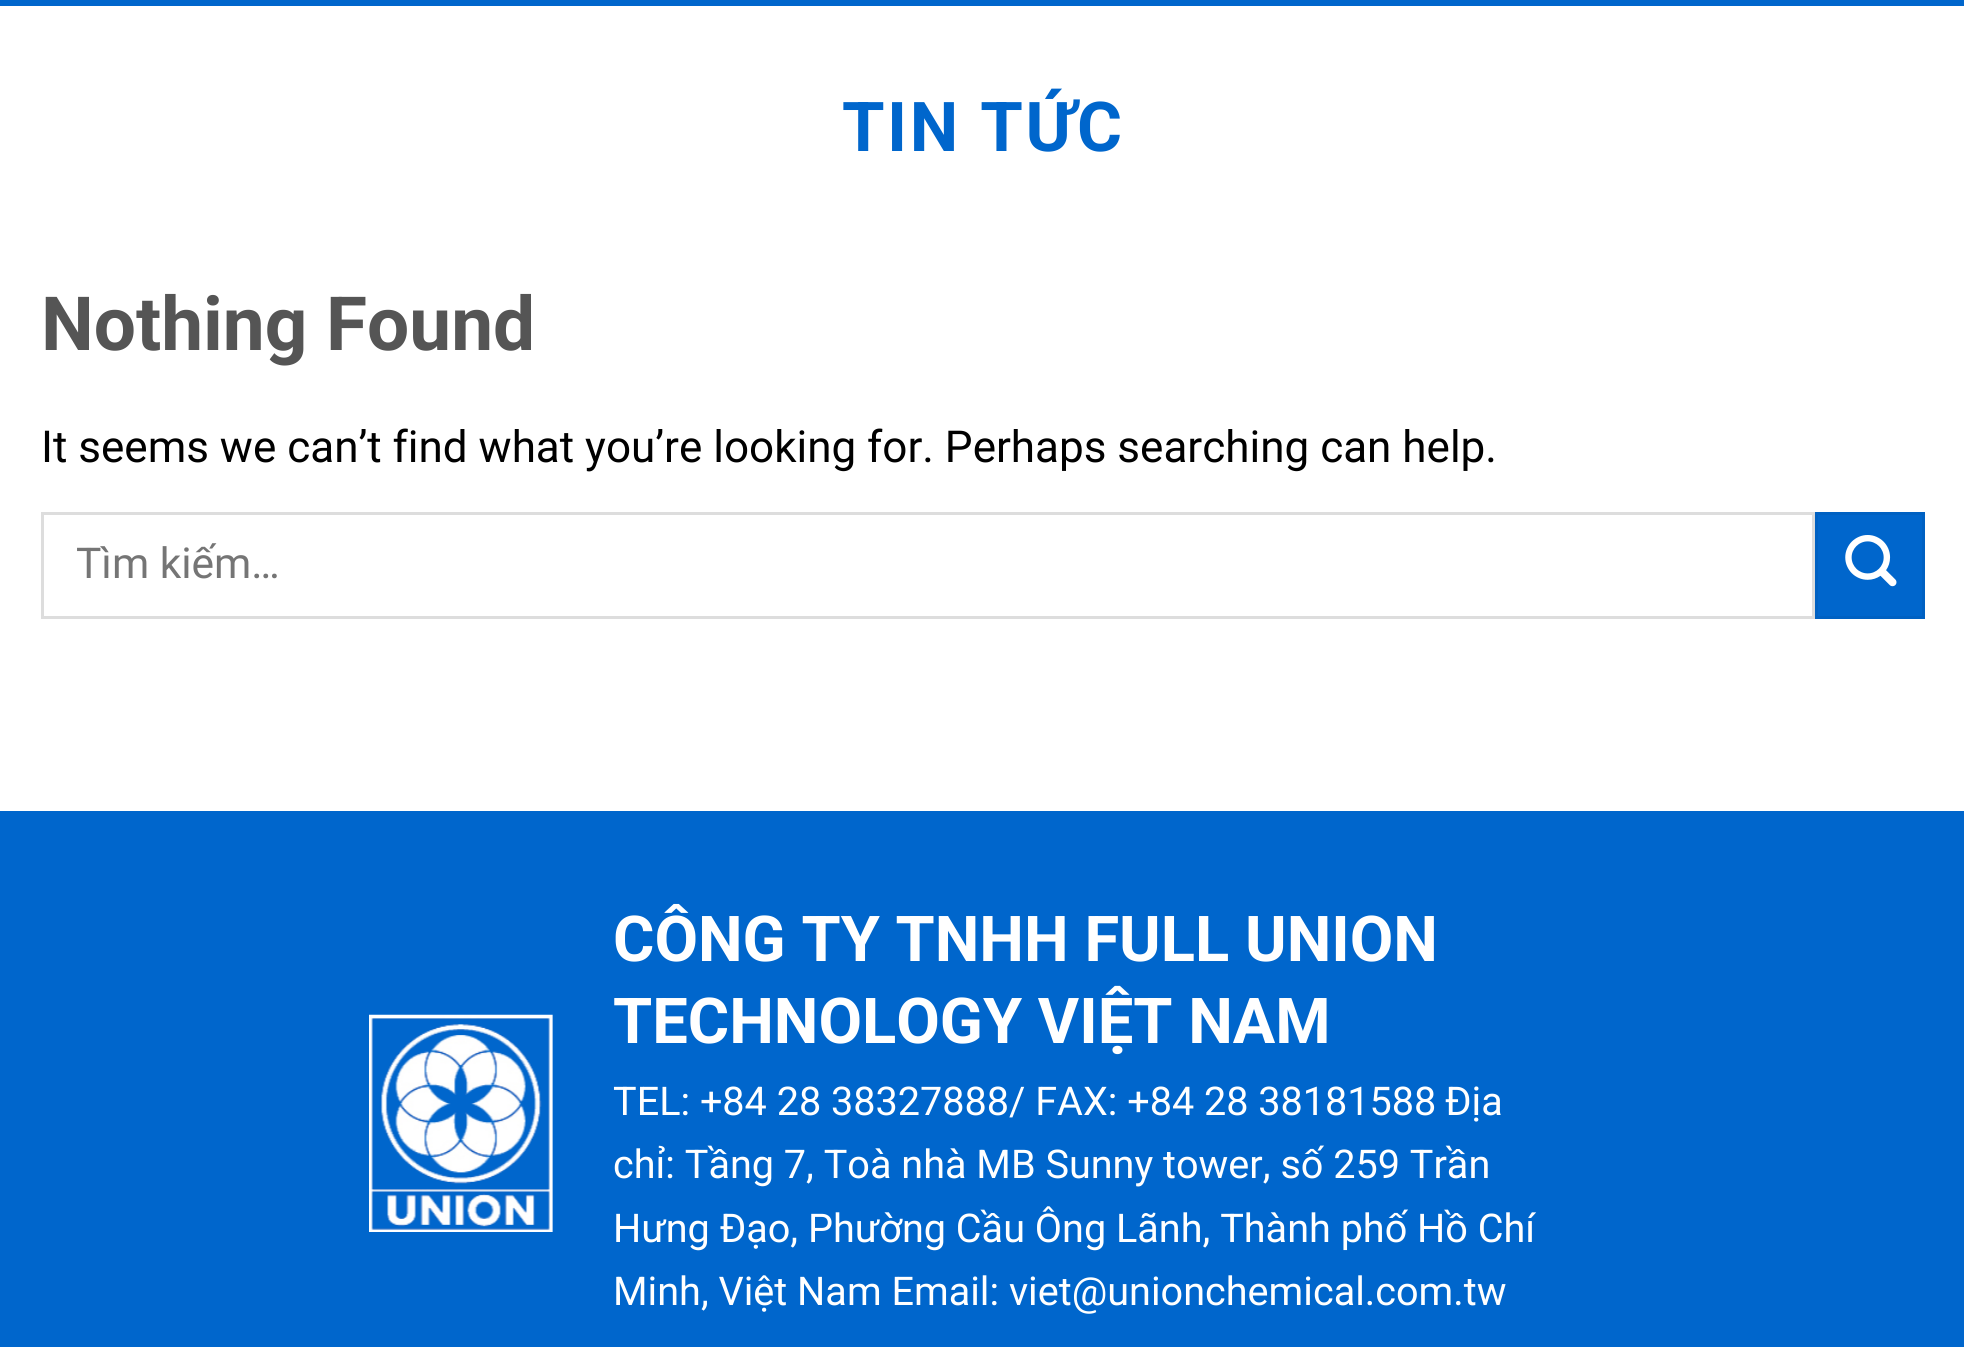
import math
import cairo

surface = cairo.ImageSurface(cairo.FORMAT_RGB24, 1964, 1347)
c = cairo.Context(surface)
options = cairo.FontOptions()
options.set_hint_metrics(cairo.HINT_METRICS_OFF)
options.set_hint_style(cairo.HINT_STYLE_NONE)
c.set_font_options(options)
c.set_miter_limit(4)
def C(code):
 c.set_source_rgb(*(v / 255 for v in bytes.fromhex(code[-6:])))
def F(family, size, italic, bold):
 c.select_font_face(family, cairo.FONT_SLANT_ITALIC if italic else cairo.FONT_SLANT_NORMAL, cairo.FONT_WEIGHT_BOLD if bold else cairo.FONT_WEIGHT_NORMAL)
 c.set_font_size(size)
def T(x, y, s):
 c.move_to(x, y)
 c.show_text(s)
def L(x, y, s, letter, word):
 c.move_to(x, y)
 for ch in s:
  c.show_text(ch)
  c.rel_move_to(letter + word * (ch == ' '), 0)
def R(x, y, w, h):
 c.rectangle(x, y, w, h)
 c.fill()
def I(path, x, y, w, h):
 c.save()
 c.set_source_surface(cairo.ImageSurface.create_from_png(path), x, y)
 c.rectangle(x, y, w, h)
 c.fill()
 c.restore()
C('ffffff')
c.paint()
C('0066cc')
R(0,0,1964,6)
F('Roboto',68.75,0,1)
L(842,151,'TIN TỨC',2.5,0)
F('Roboto',74.75,0,1)
C('555555')
T(41,350,'Nothing Found')
F('Roboto',44,0,0)
C('000000')
T(41,462,'It seems we can’t find what you’re looking for. Perhaps searching can help.')
c.rectangle(42.5,513.5,1771,104)
C('dddddd')
c.set_line_width(3)
c.stroke()
F('Roboto',42.5,0,0)
C('757575')
T(76,578,'Tìm kiếm…')
C('0066cc')
c.rectangle(1816.5,513.5,107,104)
c.fill_preserve()
C('0061c2')
c.stroke()
I('1.png',1845,535,52,52)
C('0066cc')
R(0,811,1964,536)
I('2.png',369,1014,184,218)
F('Roboto',63.25,0,1)
C('ffffff')
T(613,961,'CÔNG TY TNHH FULL UNION')
T(613,1043,'TECHNOLOGY VIỆT NAM')
F('Roboto',39.6,0,0)
T(613,1115,'TEL: +84 28 38327888/ FAX: +84 28 38181588')
T(1445,1115,'Địa')
T(613,1178,'chỉ: Tầng 7, Toà nhà MB Sunny tower, số 259 Trần')
T(613,1242,'Hưng Đạo, Phường Cầu Ông Lãnh, Thành phố Hồ Chí')
T(613,1305,'Minh, Việt Nam Email: viet@unionchemical.com.tw')
surface.write_to_png('o.png')
